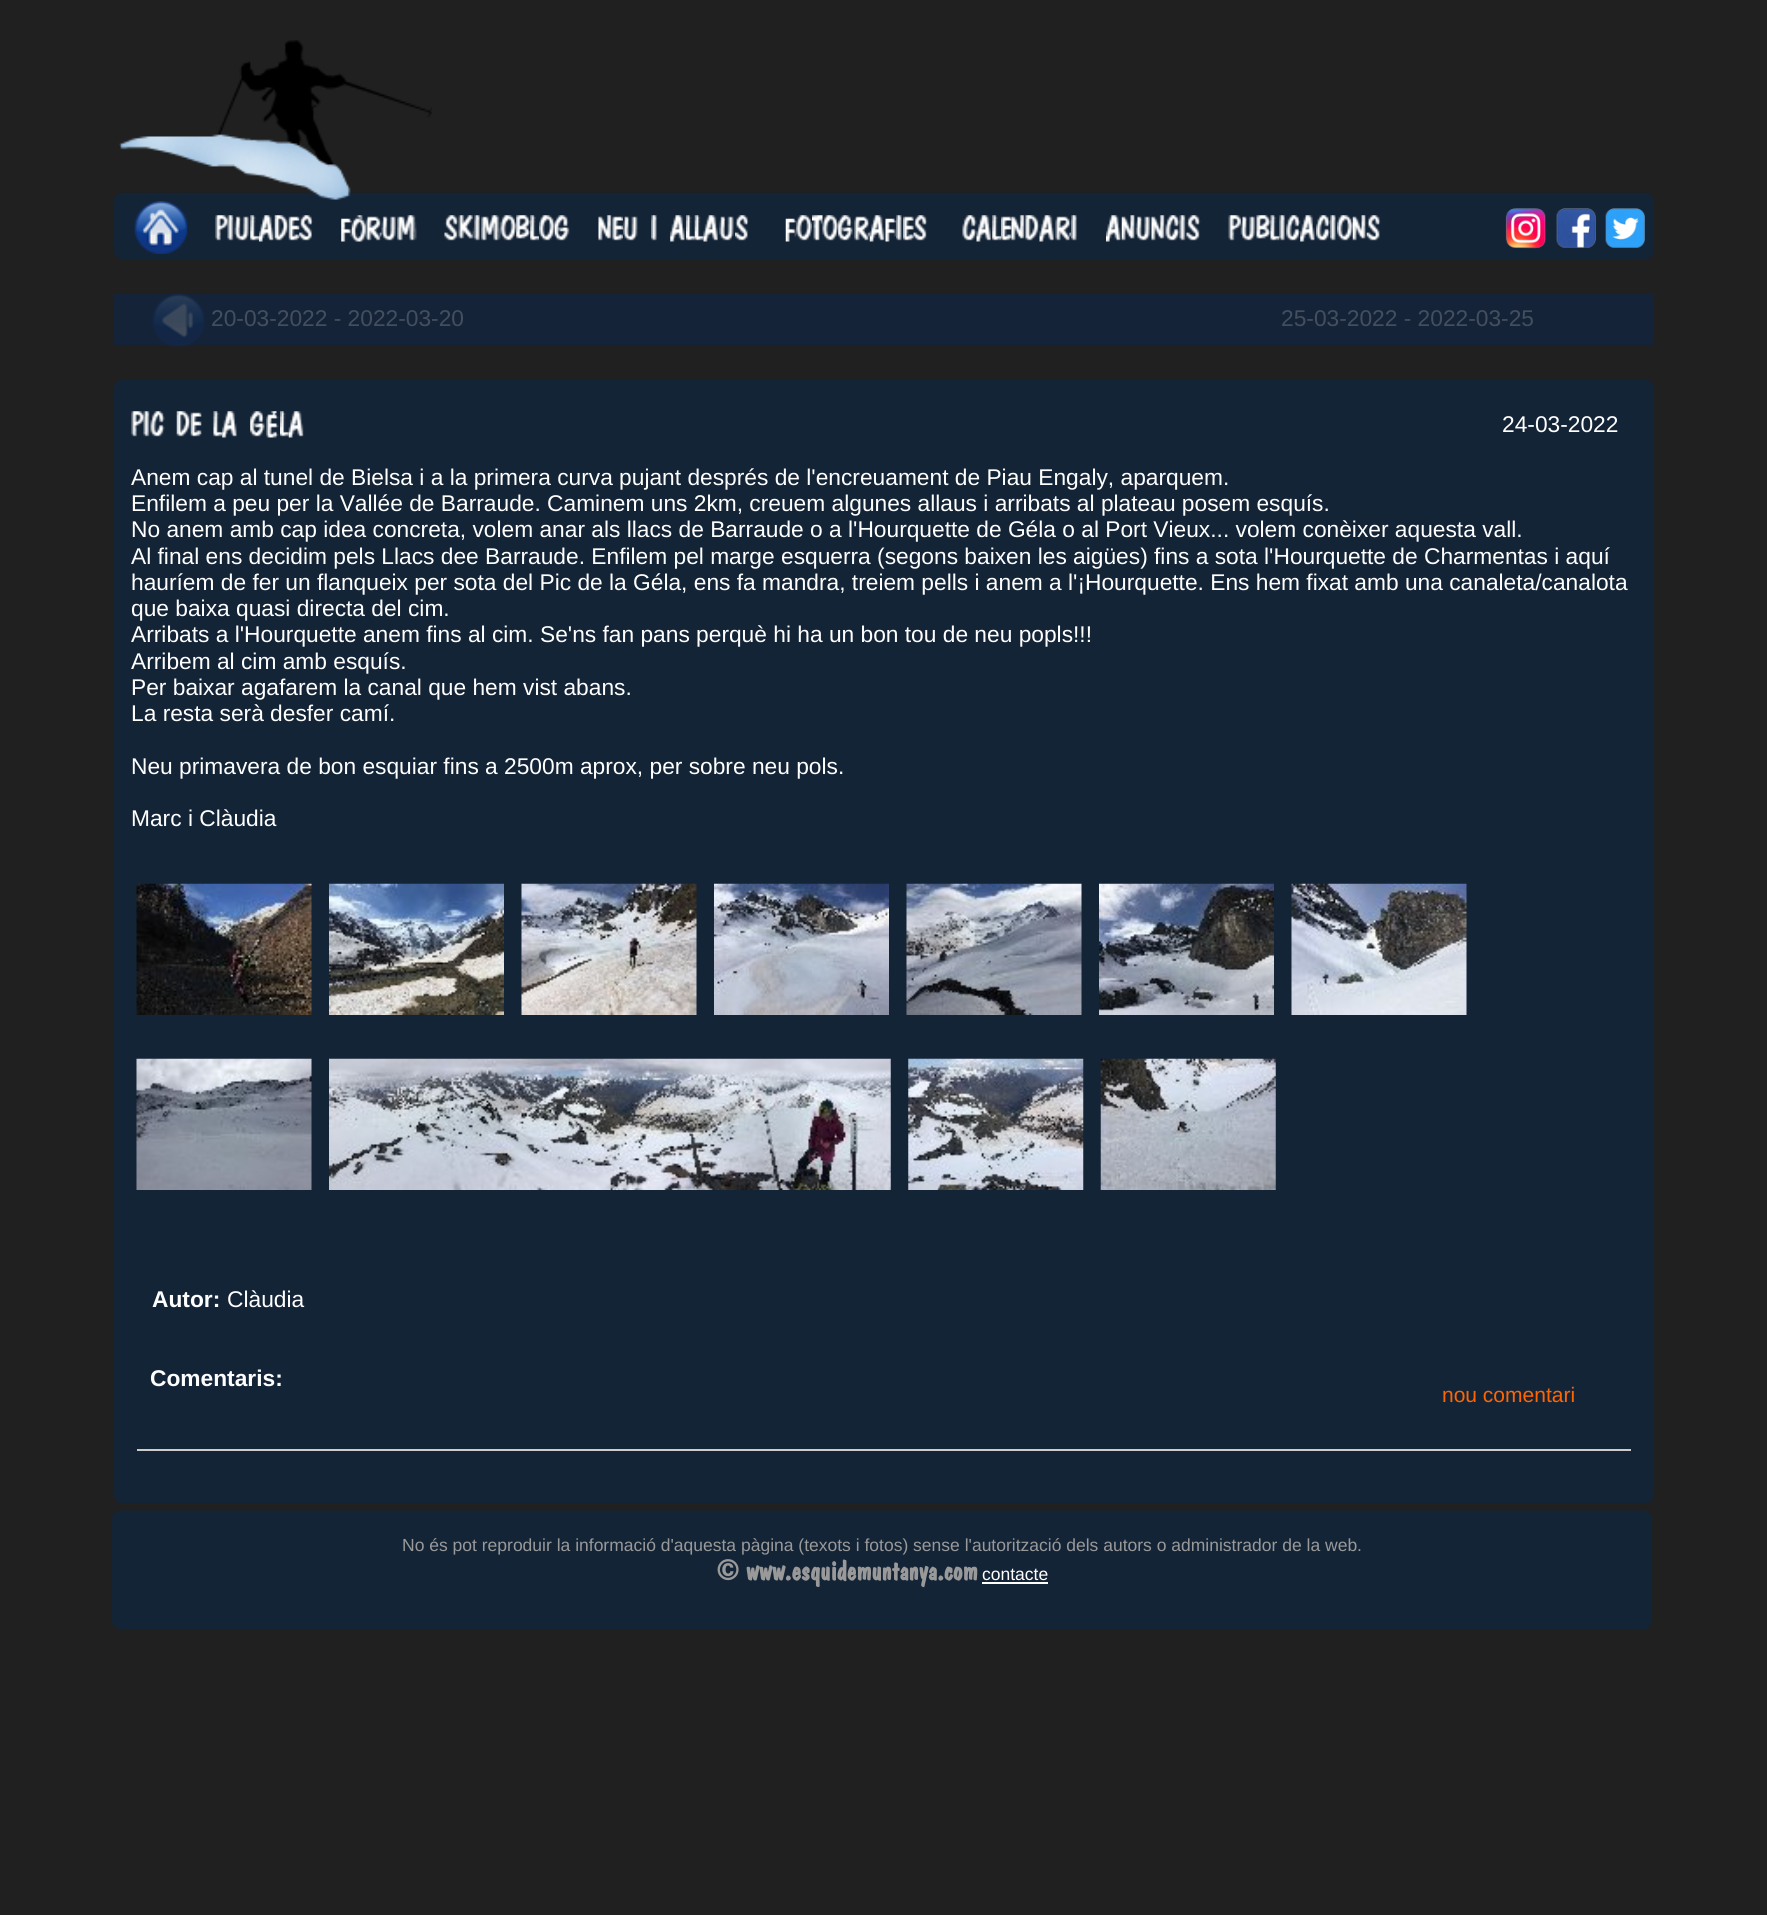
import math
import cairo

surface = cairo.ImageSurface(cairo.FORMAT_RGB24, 1767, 1915)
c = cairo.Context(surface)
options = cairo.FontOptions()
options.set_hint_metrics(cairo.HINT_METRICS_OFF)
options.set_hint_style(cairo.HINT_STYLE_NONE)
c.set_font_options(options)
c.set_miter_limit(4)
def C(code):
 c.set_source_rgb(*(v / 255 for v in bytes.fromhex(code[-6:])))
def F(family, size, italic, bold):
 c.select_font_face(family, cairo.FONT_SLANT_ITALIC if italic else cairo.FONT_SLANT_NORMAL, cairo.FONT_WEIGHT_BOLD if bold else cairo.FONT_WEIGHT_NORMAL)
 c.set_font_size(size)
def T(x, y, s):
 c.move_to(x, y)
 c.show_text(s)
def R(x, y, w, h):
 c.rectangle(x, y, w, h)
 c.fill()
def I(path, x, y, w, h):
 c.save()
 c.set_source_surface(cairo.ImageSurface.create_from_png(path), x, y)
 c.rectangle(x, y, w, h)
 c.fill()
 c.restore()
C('202020')
c.paint()
I('2.png',114,192,1540,67)
I('1.png',119,40,313,160)
I('3.png',134,201,54,53)
I('4.png',215,215,13,26)
I('5.png',227,215,7,26)
I('6.png',234,216,15,25)
I('7.png',250,215,9,26)
I('8.png',259,215,15,27)
I('9.png',274,215,15,26)
I('10.png',288,216,12,25)
I('11.png',299,215,14,26)
I('12.png',341,218,11,24)
I('13.png',351,215,15,27)
I('14.png',365,216,17,25)
I('15.png',381,216,15,25)
I('16.png',397,215,20,26)
I('17.png',444,215,15,26)
I('18.png',458,215,17,24)
I('19.png',474,215,6,26)
I('16.png',481,215,20,26)
I('20.png',500,215,17,26)
I('21.png',516,215,15,24)
I('22.png',530,215,9,26)
I('23.png',539,215,16,26)
I('24.png',554,215,16,26)
I('25.png',598,215,14,26)
I('26.png',612,216,11,25)
I('27.png',623,216,15,25)
I('28.png',651,215,6,26)
I('29.png',670,215,15,27)
I('30.png',686,215,9,26)
I('31.png',694,215,10,26)
I('32.png',703,215,15,27)
I('33.png',719,216,15,25)
I('34.png',735,215,14,26)
I('35.png',785,218,12,24)
I('36.png',796,215,16,26)
I('37.png',812,215,11,26)
I('38.png',822,215,17,26)
I('39.png',838,215,15,26)
I('40.png',854,216,16,25)
I('41.png',869,215,16,27)
I('42.png',885,218,11,24)
I('28.png',896,215,6,26)
I('43.png',903,216,11,25)
I('44.png',913,215,15,26)
I('45.png',962,215,15,26)
I('46.png',976,215,15,27)
I('47.png',992,215,9,26)
I('43.png',1001,216,11,25)
I('48.png',1011,215,14,26)
I('49.png',1025,215,15,26)
I('50.png',1039,215,15,27)
I('51.png',1055,216,16,25)
I('28.png',1071,215,6,26)
I('52.png',1106,215,15,27)
I('53.png',1121,215,14,26)
I('54.png',1135,216,16,25)
I('55.png',1151,215,14,26)
I('56.png',1165,215,15,26)
I('57.png',1179,215,7,26)
I('58.png',1186,215,15,26)
I('59.png',1228,215,13,26)
I('60.png',1240,216,16,25)
I('61.png',1256,215,15,24)
I('62.png',1270,215,10,26)
I('63.png',1279,215,6,26)
I('64.png',1286,215,15,26)
I('65.png',1300,215,15,27)
I('66.png',1316,215,14,26)
I('28.png',1330,215,6,26)
I('23.png',1337,215,16,26)
I('67.png',1352,215,14,26)
I('68.png',1366,215,15,26)
I('69.png',1505,208,41,41)
I('70.png',1556,208,40,40)
I('71.png',1605,208,40,40)
C('142337')
R(113,294,1541,51)
I('72.png',152,294,53,53)
F('Liberation Sans',22.75,0,0)
C('434f5f')
T(211,326,'20-03-2022 - 2022-03-20')
T(1281,326,'25-03-2022 - 2022-03-25')
I('73.png',114,380,1540,1123)
I('74.png',131,411,13,26)
I('5.png',143,411,7,26)
I('75.png',150,411,15,26)
I('76.png',176,411,15,26)
I('77.png',190,412,12,25)
I('78.png',213,411,10,26)
I('79.png',222,411,15,27)
I('80.png',250,411,15,26)
I('81.png',266,411,13,27)
I('82.png',280,411,9,26)
I('83.png',288,411,16,27)
C('ffffff')
T(1502,432,'24-03-2022')
T(131,485,'Anem cap al tunel de Bielsa i a la primera curva pujant després de l\'encreuament de Piau Engaly, aparquem.')
T(131,511,'Enfilem a peu per la Vallée de Barraude. Caminem uns 2km, creuem algunes allaus i arribats al plateau posem esquís.')
T(131,537,'No anem amb cap idea concreta, volem anar als llacs de Barraude o a l\'Hourquette de Géla o al Port Vieux... volem conèixer aquesta vall.')
T(131,564,'Al final ens decidim pels Llacs dee Barraude. Enfilem pel marge esquerra (segons baixen les aigües) fins a sota l\'Hourquette de Charmentas i aquí')
T(131,590,'hauríem de fer un flanqueix per sota del Pic de la Géla, ens fa mandra, treiem pells i anem a l\'¡Hourquette. Ens hem fixat amb una canaleta/canalota')
T(131,616,'que baixa quasi directa del cim.')
T(131,642,'Arribats a l\'Hourquette anem fins al cim. Se\'ns fan pans perquè hi ha un bon tou de neu popls!!!')
T(131,669,'Arribem al cim amb esquís.')
T(131,695,'Per baixar agafarem la canal que hem vist abans.')
T(131,721,'La resta serà desfer camí.')
T(131,774,'Neu primavera de bon esquiar fins a 2500m aprox, per sobre neu pols.')
T(131,826,'Marc i Clàudia')
I('84.png',136,883,176,132)
I('85.png',329,883,175,132)
I('86.png',521,883,176,132)
I('87.png',714,883,175,132)
I('88.png',906,883,176,132)
I('89.png',1099,883,175,132)
I('90.png',1291,883,176,132)
I('91.png',136,1058,176,132)
I('92.png',329,1058,562,132)
I('93.png',908,1058,176,132)
I('94.png',1100,1058,176,132)
F('Liberation Sans',22.75,0,1)
T(152,1307,'Autor:')
F('Liberation Sans',22.75,0,0)
T(227,1307,'Clàudia')
F('Liberation Sans',22.75,0,1)
T(150,1386,'Comentaris:')
F('Liberation Sans',21,0,0)
C('ff6600')
T(1442,1402,'nou comentari')
C('cccccc')
R(137,1449,1494,2)
I('95.png',112,1510,1540,119)
F('Liberation Sans',17.5,0,0)
C('999999')
T(402,1551,'No és pot reproduir la informació d\'aquesta pàgina (texots i fotos) sense l\'autorització dels autors o administrador de la web.')
F('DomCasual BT',28,0,1)
T(716,1580,'© www.esquidemuntanya.com')
F('Liberation Sans',17.5,0,0)
C('ffffff')
T(982,1580,'contacte')
R(982,1582,66,2)
surface.write_to_png('o.png')
